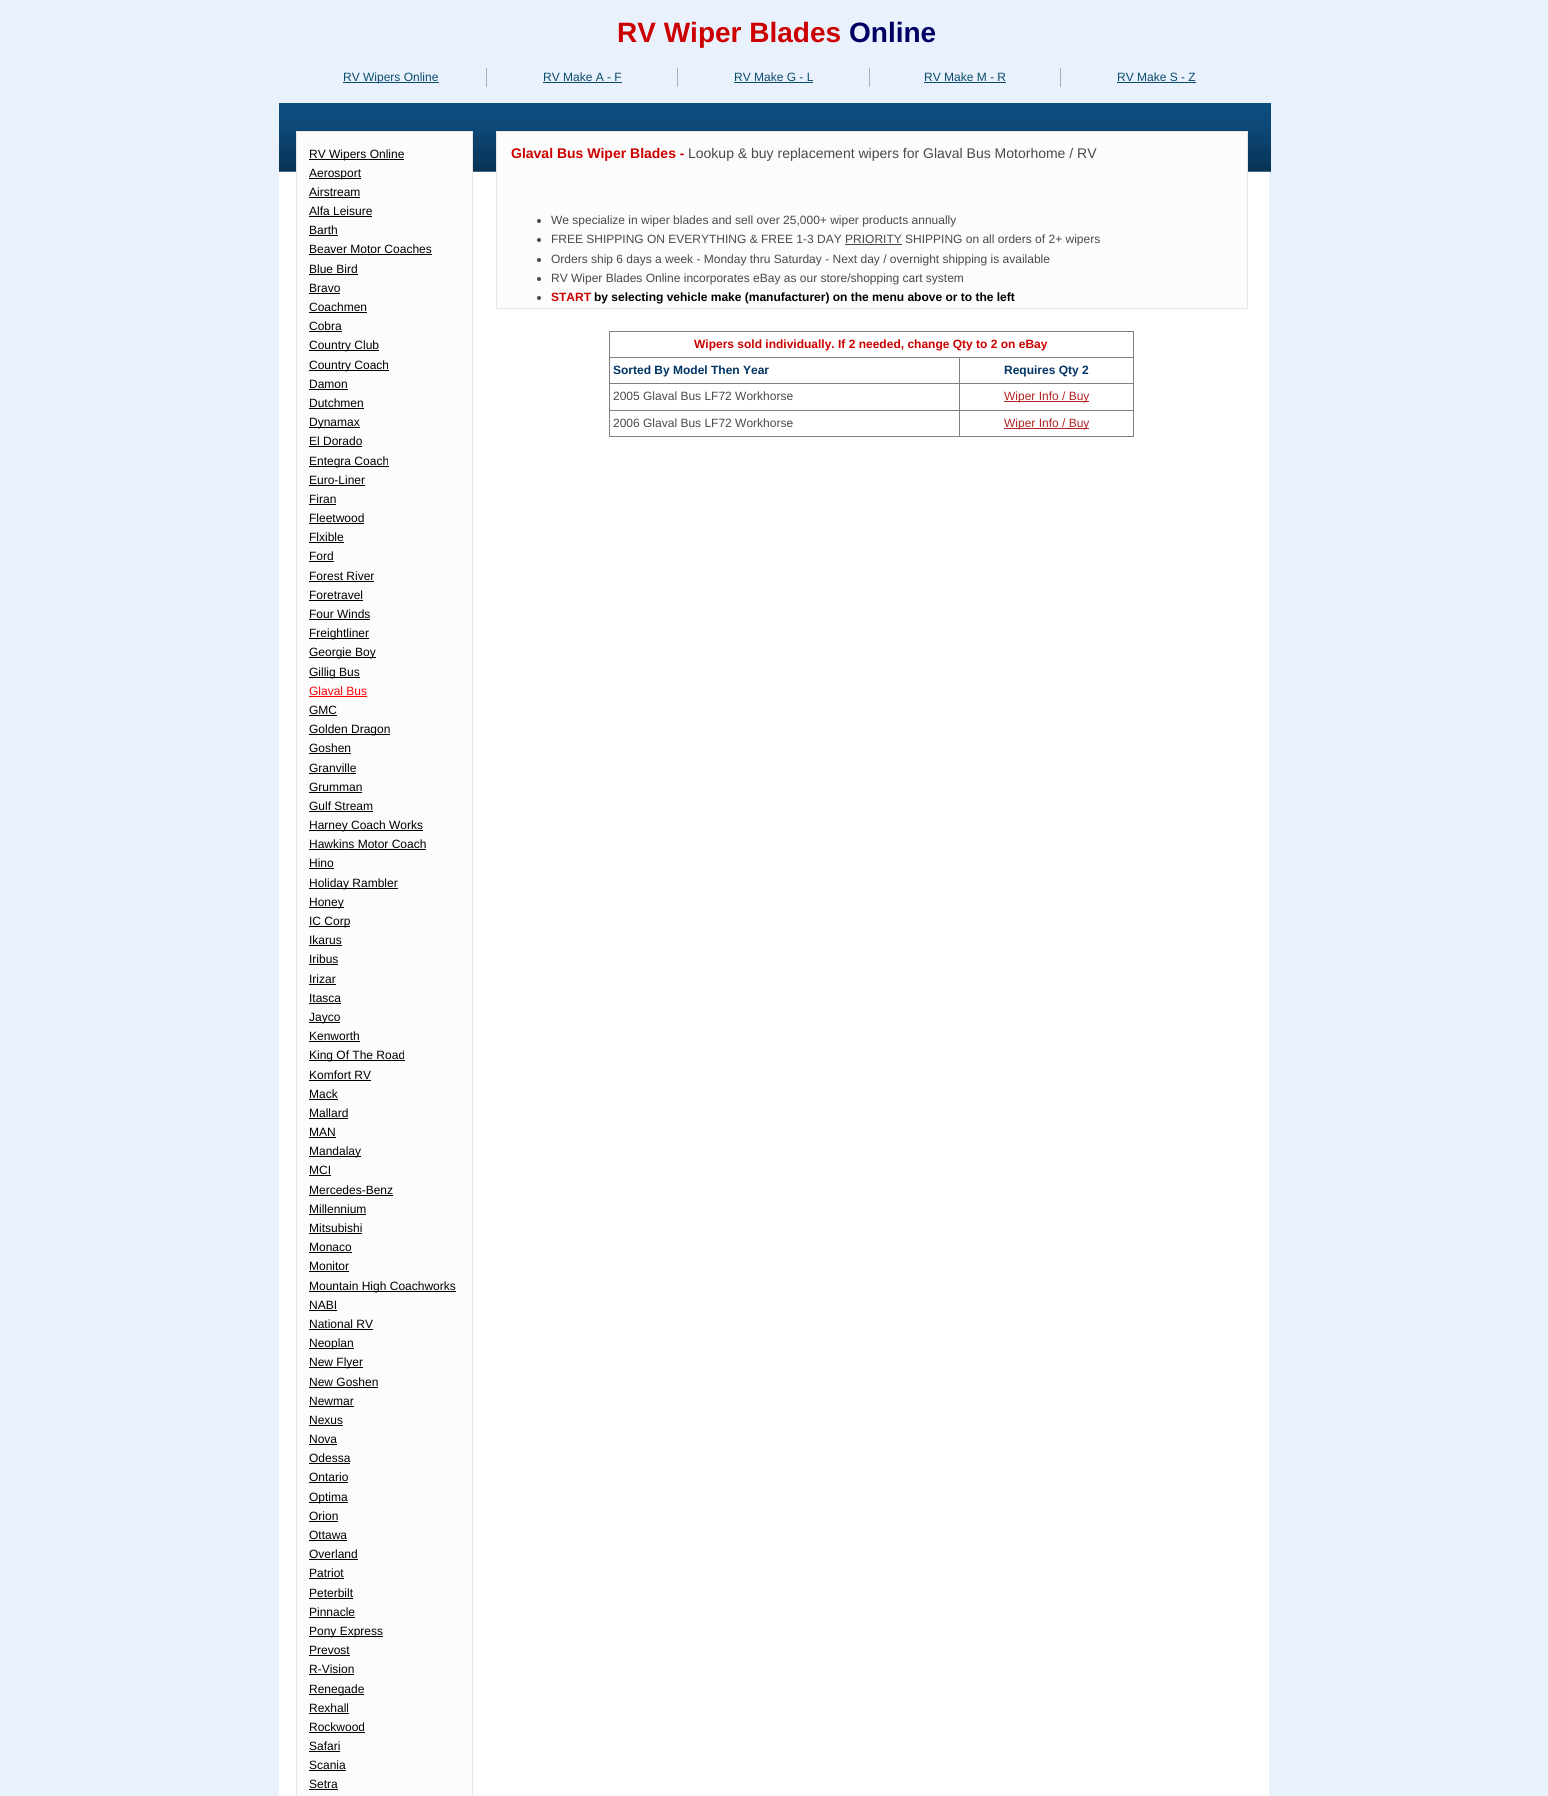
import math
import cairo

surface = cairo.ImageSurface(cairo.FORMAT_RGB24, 1548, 1796)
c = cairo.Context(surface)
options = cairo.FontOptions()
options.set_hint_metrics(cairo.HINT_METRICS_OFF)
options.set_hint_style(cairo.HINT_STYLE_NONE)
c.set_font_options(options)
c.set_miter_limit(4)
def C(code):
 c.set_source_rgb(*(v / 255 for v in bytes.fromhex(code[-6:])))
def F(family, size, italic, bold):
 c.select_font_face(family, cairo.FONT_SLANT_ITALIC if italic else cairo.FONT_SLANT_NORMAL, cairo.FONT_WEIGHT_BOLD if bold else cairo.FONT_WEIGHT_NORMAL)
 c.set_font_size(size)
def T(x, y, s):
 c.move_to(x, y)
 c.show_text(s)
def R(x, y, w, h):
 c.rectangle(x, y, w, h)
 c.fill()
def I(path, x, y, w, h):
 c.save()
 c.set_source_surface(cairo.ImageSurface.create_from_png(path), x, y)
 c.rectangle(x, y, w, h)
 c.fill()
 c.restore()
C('e8f1fc')
c.paint()
C('ffffff')
R(279,171,990,1625)
F('Liberation Sans',28,0,1)
C('cc0000')
T(617,42,'RV Wiper Blades')
C('000063')
T(849,42,'Online')
C('aeaeae')
R(486,68,1,19)
C('0b4c6d')
R(343,82,96,1)
F('Liberation Sans',12,0,0)
T(343,81,'RV Wipers Online')
C('aeaeae')
R(677,68,1,19)
C('0b4c6d')
T(543,81,'RV Make A - F')
R(543,82,79,1)
C('aeaeae')
R(869,68,1,19)
C('0b4c6d')
T(734,81,'RV Make G - L')
R(734,82,79,1)
C('aeaeae')
R(1060,68,1,19)
C('0b4c6d')
T(924,81,'RV Make M - R')
R(924,82,82,1)
T(1117,81,'RV Make S - Z')
R(1117,82,79,1)
I('1.png',279,103,992,69)
C('fcfcfc')
c.rectangle(296.5,131.5,176,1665)
c.fill_preserve()
C('e6e6e6')
c.set_line_width(1)
c.stroke()
C('fcfcfc')
c.rectangle(496.5,131.5,751,177)
c.fill_preserve()
C('e6e6e6')
c.stroke()
C('000000')
R(309,159,95,1)
T(309,158,'RV Wipers Online')
R(309,178,52,1)
T(309,177,'Aerosport')
T(309,196,'Airstream')
R(309,197,51,1)
T(309,215,'Alfa Leisure')
R(309,216,63,1)
T(309,234,'Barth')
R(309,235,29,1)
T(309,253,'Beaver Motor Coaches')
R(309,254,123,1)
T(309,273,'Blue Bird')
R(309,274,49,1)
T(309,292,'Bravo')
R(309,293,31,1)
T(309,311,'Coachmen')
R(309,312,58,1)
T(309,330,'Cobra')
R(309,331,33,1)
R(309,350,70,1)
T(309,349,'Country Club')
R(309,370,80,1)
T(309,369,'Country Coach')
T(309,388,'Damon')
R(309,389,39,1)
T(309,407,'Dutchmen')
R(309,408,55,1)
R(309,427,51,1)
T(309,426,'Dynamax')
T(309,445,'El Dorado')
R(309,446,53,1)
R(309,466,80,1)
T(309,465,'Entegra Coach')
T(309,484,'Euro-Liner')
R(309,485,56,1)
T(309,503,'Firan')
R(309,504,27,1)
T(309,522,'Fleetwood')
R(309,523,55,1)
T(309,541,'Flxible')
R(309,542,35,1)
T(309,560,'Ford')
R(309,561,25,1)
T(309,580,'Forest River')
R(309,581,65,1)
T(309,599,'Foretravel')
R(309,600,54,1)
T(309,618,'Four Winds')
R(309,619,61,1)
R(309,638,60,1)
T(309,637,'Freightliner')
R(309,657,67,1)
T(309,656,'Georgie Boy')
R(309,677,51,1)
T(309,676,'Gillig Bus')
C('ff0000')
T(309,695,'Glaval Bus')
R(309,696,58,1)
C('000000')
T(309,714,'GMC')
R(309,715,28,1)
R(309,734,81,1)
T(309,733,'Golden Dragon')
T(309,752,'Goshen')
R(309,753,42,1)
T(309,772,'Granville')
R(309,773,47,1)
T(309,791,'Grumman')
R(309,792,53,1)
T(309,810,'Gulf Stream')
R(309,811,64,1)
R(309,830,114,1)
T(309,829,'Harney Coach Works')
T(309,848,'Hawkins Motor Coach')
R(309,849,117,1)
T(309,867,'Hino')
R(309,868,25,1)
R(309,888,89,1)
T(309,887,'Holiday Rambler')
R(309,907,35,1)
T(309,906,'Honey')
R(309,926,41,1)
T(309,925,'IC Corp')
T(309,944,'Ikarus')
R(309,945,33,1)
T(309,963,'Iribus')
R(309,964,29,1)
T(309,983,'Irizar')
R(309,984,27,1)
T(309,1002,'Itasca')
R(309,1003,32,1)
R(309,1022,31,1)
T(309,1021,'Jayco')
T(309,1040,'Kenworth')
R(309,1041,51,1)
R(309,1060,96,1)
T(309,1059,'King Of The Road')
T(309,1079,'Komfort RV')
R(309,1080,62,1)
T(309,1098,'Mack')
R(309,1099,29,1)
T(309,1117,'Mallard')
R(309,1118,39,1)
T(309,1136,'MAN')
R(309,1137,27,1)
R(309,1156,52,1)
T(309,1155,'Mandalay')
T(309,1174,'MCI')
R(309,1175,22,1)
T(309,1194,'Mercedes-Benz')
R(309,1195,84,1)
T(309,1213,'Millennium')
R(309,1214,57,1)
T(309,1232,'Mitsubishi')
R(309,1233,53,1)
T(309,1251,'Monaco')
R(309,1252,43,1)
T(309,1270,'Monitor')
R(309,1271,40,1)
R(309,1291,147,1)
T(309,1290,'Mountain High Coachworks')
T(309,1309,'NABI')
R(309,1310,28,1)
T(309,1328,'National RV')
R(309,1329,64,1)
R(309,1348,45,1)
T(309,1347,'Neoplan')
R(309,1367,54,1)
T(309,1366,'New Flyer')
T(309,1386,'New Goshen')
R(309,1387,69,1)
T(309,1405,'Newmar')
R(309,1406,45,1)
T(309,1424,'Nexus')
R(309,1425,34,1)
T(309,1443,'Nova')
R(309,1444,28,1)
T(309,1462,'Odessa')
R(309,1463,41,1)
T(309,1481,'Ontario')
R(309,1482,39,1)
R(309,1502,39,1)
T(309,1501,'Optima')
T(309,1520,'Orion')
R(309,1521,29,1)
T(309,1539,'Ottawa')
R(309,1540,38,1)
T(309,1558,'Overland')
R(309,1559,49,1)
T(309,1577,'Patriot')
R(309,1578,35,1)
T(309,1597,'Peterbilt')
R(309,1598,44,1)
T(309,1616,'Pinnacle')
R(309,1617,46,1)
R(309,1636,74,1)
T(309,1635,'Pony Express')
T(309,1654,'Prevost')
R(309,1655,41,1)
T(309,1673,'R-Vision')
R(309,1674,45,1)
R(309,1694,55,1)
T(309,1693,'Renegade')
T(309,1712,'Rexhall')
R(309,1713,40,1)
T(309,1731,'Rockwood')
R(309,1732,56,1)
T(309,1750,'Safari')
R(309,1751,31,1)
T(309,1769,'Scania')
R(309,1770,37,1)
T(309,1788,'Setra')
R(309,1789,29,1)
F('Liberation Sans',14,0,1)
C('cc0000')
T(511,158,'Glaval Bus Wiper Blades -')
F('Liberation Sans',14,0,0)
C('494949')
T(688,158,'Lookup & buy replacement wipers for Glaval Bus Motorhome / RV')
c.new_path()
c.arc(539,221,2,0,2 * math.pi)
c.fill()
F('Liberation Sans',12,0,0)
T(551,224,'We specialize in wiper blades and sell over 25,000+ wiper products annually')
c.new_path()
c.arc(539,240,2,0,2 * math.pi)
c.fill()
T(551,243,'FREE SHIPPING ON EVERYTHING & FREE 1-3 DAY PRIORITY SHIPPING on all orders of 2+ wipers')
R(845,244,57,1)
c.new_path()
c.arc(539,260,2,0,2 * math.pi)
c.fill()
T(551,263,'Orders ship 6 days a week - Monday thru Saturday - Next day / overnight shipping is available')
c.new_path()
c.arc(539,279,2,0,2 * math.pi)
c.fill()
T(551,282,'RV Wiper Blades Online incorporates eBay as our store/shopping cart system')
c.new_path()
c.arc(539,298,2,0,2 * math.pi)
c.fill()
F('Liberation Sans',12,0,1)
C('cc0000')
T(551,301,'START')
C('000000')
T(594,301,'by selecting vehicle make (manufacturer) on the menu above or to the left')
C('808080')
R(609,331,525,1)
R(1133,331,1,106)
R(609,436,525,1)
R(609,331,1,106)
C('cc0000')
T(694,348,'Wipers sold individually. If 2 needed, change Qty to 2 on eBay')
C('808080')
R(959,357,175,1)
R(959,383,175,1)
R(959,410,175,1)
R(959,410,1,27)
R(609,410,351,1)
R(959,383,1,28)
R(609,383,351,1)
R(959,357,1,27)
R(609,357,351,1)
C('003366')
T(613,374,'Sorted By Model Then Year')
T(1004,374,'Requires Qty 2')
F('Liberation Sans',12,0,0)
C('494949')
T(613,400,'2005 Glaval Bus LF72 Workhorse')
C('b22222')
R(1004,401,85,1)
T(1004,400,'Wiper Info / Buy')
C('494949')
T(613,427,'2006 Glaval Bus LF72 Workhorse')
C('b22222')
R(1004,428,85,1)
T(1004,427,'Wiper Info / Buy')
surface.write_to_png('o.png')
